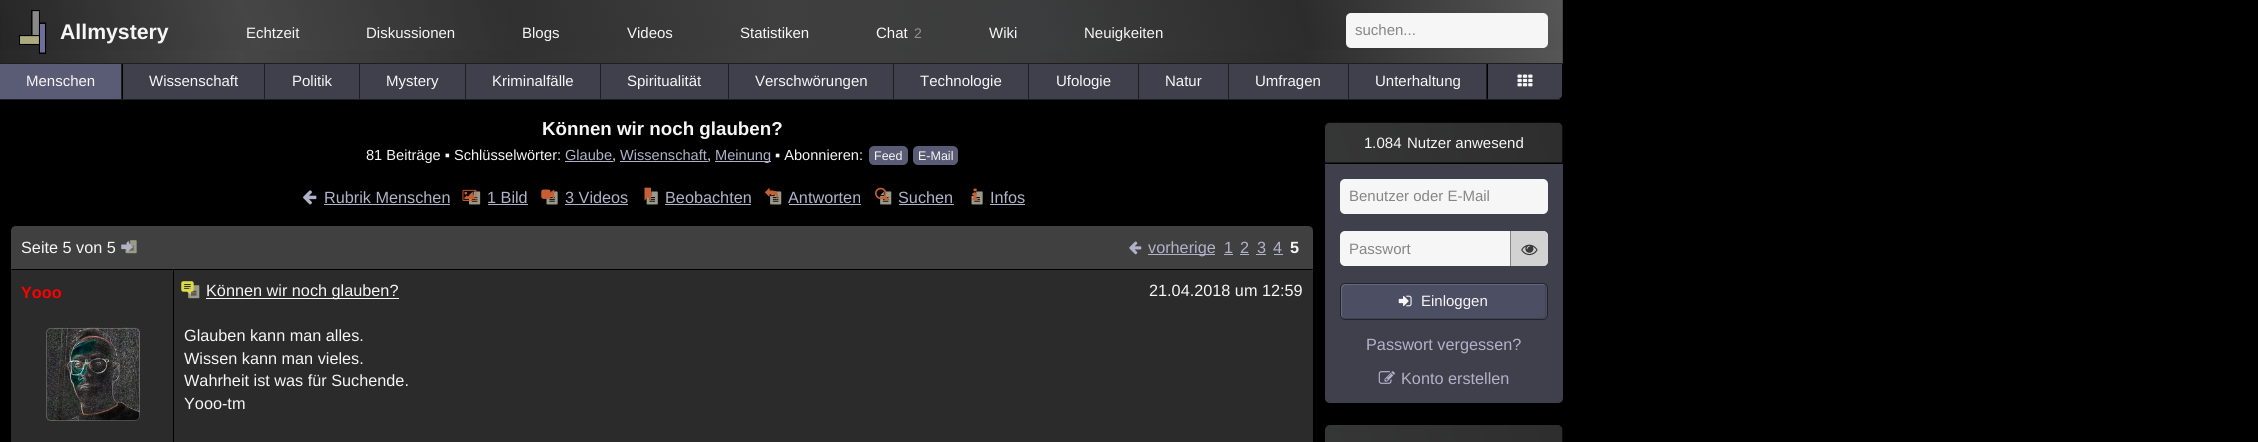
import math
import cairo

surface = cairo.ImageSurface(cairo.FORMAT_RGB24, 2258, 442)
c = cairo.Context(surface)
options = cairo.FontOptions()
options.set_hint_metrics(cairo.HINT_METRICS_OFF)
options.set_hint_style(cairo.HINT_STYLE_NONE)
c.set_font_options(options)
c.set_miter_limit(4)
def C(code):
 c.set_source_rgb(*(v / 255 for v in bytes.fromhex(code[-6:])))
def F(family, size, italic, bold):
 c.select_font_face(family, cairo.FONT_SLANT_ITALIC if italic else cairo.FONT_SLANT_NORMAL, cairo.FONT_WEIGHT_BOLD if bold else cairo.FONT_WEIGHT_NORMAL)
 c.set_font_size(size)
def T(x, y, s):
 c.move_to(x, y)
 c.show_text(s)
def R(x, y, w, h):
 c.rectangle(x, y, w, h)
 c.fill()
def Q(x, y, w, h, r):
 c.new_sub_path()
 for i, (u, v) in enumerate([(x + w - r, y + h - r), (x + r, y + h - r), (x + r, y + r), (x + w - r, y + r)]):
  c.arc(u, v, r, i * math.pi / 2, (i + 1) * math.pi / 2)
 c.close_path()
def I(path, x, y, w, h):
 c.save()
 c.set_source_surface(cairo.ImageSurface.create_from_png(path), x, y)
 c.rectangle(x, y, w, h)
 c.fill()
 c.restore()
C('000000')
c.paint()
C('404040')
R(1562,0,1,63)
I('1.png',0,0,1563,63)
I('2.png',19,10,28,44)
F('Liberation Sans',21.25,0,1)
C('f6f6f6')
T(60,39,'Allmystery')
F('Liberation Sans',15,0,0)
T(246,38,'Echtzeit')
T(366,38,'Diskussionen')
T(522,38,'Blogs')
T(627,38,'Videos')
T(740,38,'Statistiken')
T(876,38,'Chat')
F('Liberation Sans',14,0,0)
C('919191')
T(914,38,'2')
F('Liberation Sans',15,0,0)
C('f6f6f6')
T(989,38,'Wiki')
T(1084,38,'Neuigkeiten')
Q(1346,13,202,35,5)
c.fill()
C('868686')
T(1355,35,'suchen...')
C('5a5c75')
R(0,64,121,35)
C('1f1f1f')
R(0,63,1563,1)
R(0,99,1560,1)
C('f6f6f6')
T(26,86,'Menschen')
C('40404c')
R(123,64,141,35)
C('1f1f1f')
R(121,63,1,37)
C('f6f6f6')
T(149,86,'Wissenschaft')
C('40404c')
R(265,64,94,35)
C('1f1f1f')
R(264,63,1,37)
C('f6f6f6')
T(292,86,'Politik')
C('40404c')
R(360,64,105,35)
C('1f1f1f')
R(359,63,1,37)
C('f6f6f6')
T(386,86,'Mystery')
C('40404c')
R(466,64,134,35)
C('1f1f1f')
R(465,63,1,37)
C('f6f6f6')
T(492,86,'Kriminalfälle')
C('40404c')
R(601,64,127,35)
C('1f1f1f')
R(600,63,1,37)
C('f6f6f6')
T(627,86,'Spiritualität')
C('40404c')
R(729,64,164,35)
C('1f1f1f')
R(728,63,1,37)
C('f6f6f6')
T(755,86,'Verschwörungen')
C('40404c')
R(894,64,134,35)
C('1f1f1f')
R(893,63,1,37)
C('f6f6f6')
T(920,86,'Technologie')
C('40404c')
R(1029,64,109,35)
C('1f1f1f')
R(1028,63,1,37)
C('f6f6f6')
T(1056,86,'Ufologie')
C('40404c')
R(1139,64,89,35)
C('1f1f1f')
R(1138,63,1,37)
C('f6f6f6')
T(1165,86,'Natur')
C('40404c')
R(1229,64,119,35)
C('1f1f1f')
R(1228,63,1,37)
C('f6f6f6')
T(1255,86,'Umfragen')
C('40404c')
R(1349,64,137,35)
C('1f1f1f')
R(1348,63,1,37)
C('f6f6f6')
T(1375,86,'Unterhaltung')
C('40404c')
c.new_path()
c.move_to(1488,64)
c.line_to(1562,64)
c.line_to(1562,95)
c.curve_to(1562,97,1560,99,1558,99)
c.line_to(1488,99)
c.close_path()
c.fill()
C('1f1f1f')
R(1486,63,1,37)
I('3.png',1517,74,16,13)
F('Liberation Sans',18.75,0,1)
C('f6f6f6')
T(542,135,'Können wir noch glauben?')
F('Liberation Sans',14.6,0,0)
T(366,160,'81 Beiträge ▪ Schlüsselwörter:')
C('b1b2c9')
T(565,160,'Glaube')
R(565,161,48,1)
C('f6f6f6')
T(612,160,',')
C('b1b2c9')
T(620,160,'Wissenschaft')
R(620,161,88,1)
C('f6f6f6')
T(707,160,',')
C('b1b2c9')
R(715,161,56,1)
T(715,160,'Meinung')
C('f6f6f6')
T(775,160,'▪ Abonnieren:')
C('5a5c75')
Q(869,146,39,19,5)
c.fill()
F('Liberation Sans',12.5,0,0)
C('f6f6f6')
T(874,160,'Feed')
C('5a5c75')
Q(913,146,45,19,5)
c.fill()
C('f6f6f6')
T(918,160,'E-Mail')
I('4.png',303,190,14,15)
F('Liberation Sans',16.25,0,0)
C('b1b2c9')
T(324,203,'Rubrik Menschen')
R(324,204,126,1)
I('6.png',469,191,12,14)
I('5.png',462,189,15,12)
T(487,203,'1 Bild')
R(488,204,40,1)
I('8.png',546,191,12,14)
I('7.png',541,189,14,10)
T(565,203,'3 Videos')
R(565,204,63,1)
I('10.png',646,191,12,14)
I('9.png',644,187,7,14)
T(665,203,'Beobachten')
R(665,204,86,1)
I('12.png',770,191,12,14)
I('11.png',765,188,13,12)
T(788,203,'Antworten')
R(789,204,72,1)
I('14.png',880,191,12,14)
I('13.png',875,187,14,14)
T(898,203,'Suchen')
R(899,204,55,1)
I('16.png',971,191,12,14)
I('15.png',972,188,6,13)
T(990,203,'Infos')
R(990,204,35,1)
C('404040')
c.new_path()
c.move_to(16,226)
c.line_to(1308,226)
c.curve_to(1311,226,1313,228,1313,231)
c.line_to(1313,269)
c.line_to(11,269)
c.line_to(11,231)
c.curve_to(11,228,13,226,16,226)
c.close_path()
c.fill()
C('f6f6f6')
T(21,253,'Seite 5 von 5')
I('17.png',125,240,12,14)
I('18.png',121,241,12,11)
I('19.png',1129,241,13,14)
C('b1b2c9')
R(1148,254,67,1)
T(1148,253,'vorherige')
T(1224,253,'1')
R(1224,254,9,1)
T(1240,253,'2')
R(1240,254,9,1)
T(1257,253,'3')
R(1256,254,10,1)
T(1273,253,'4')
R(1274,254,9,1)
F('Liberation Sans',16.25,0,1)
C('f6f6f6')
T(1290,253,'5')
C('2b2b2b')
R(11,270,1302,172)
C('000000')
R(173,270,1,172)
C('ff0000')
T(21,298,'Yooo')
C('222222')
Q(46,328,94,93,5)
c.fill()
I('20.png',46,327,94,94)
Q(46.5,328.5,93,92,4.5)
c.set_source_rgba(0.549,0.549,0.549,0.5)
c.set_line_width(1)
c.stroke()
I('22.png',188,285,12,14)
I('21.png',181,281,13,14)
C('f6f6f6')
R(206,298,193,1)
F('Liberation Sans',16.25,0,0)
T(206,296,'Können wir noch glauben?')
T(1149,296,'21.04.2018 um 12:59')
T(184,341,'Glauben kann man alles.')
T(184,364,'Wissen kann man vieles.')
T(184,386,'Wahrheit ist was für Suchende.')
T(184,409,'Yooo-tm')
I('23.png',1325,122,238,41)
F('Liberation Sans',15,0,0)
T(1372,148,'.')
T(1364,148,'1 084')
T(1407,148,'Nutzer anwesend')
C('40404c')
c.new_path()
c.move_to(1325,164)
c.line_to(1563,164)
c.line_to(1563,398)
c.curve_to(1563,401,1561,403,1558,403)
c.line_to(1330,403)
c.curve_to(1327,403,1325,401,1325,398)
c.close_path()
c.fill()
C('f6f6f6')
Q(1340,179,208,35,5)
c.fill()
C('868686')
T(1349,201,'Benutzer oder E-Mail')
C('f6f6f6')
Q(1340,231,208,35,5)
c.fill()
C('868686')
T(1349,254,'Passwort')
C('d2d2d2')
c.new_path()
c.move_to(1510,231)
c.line_to(1543,231)
c.curve_to(1546,231,1548,233,1548,236)
c.line_to(1548,261)
c.curve_to(1548,264,1546,266,1543,266)
c.line_to(1510,266)
c.close_path()
c.fill()
C('868686')
R(1510,231,1,35)
I('24.png',1521,244,17,12)
C('4c4e63')
Q(1340,283,208,37,5)
c.fill()
C('414254')
c.new_path()
c.move_to(1342,317)
c.line_to(1344,318)
c.line_to(1541,318)
c.curve_to(1547,318,1545,308,1545,305)
c.line_to(1545,285)
c.curve_to(1546,286,1546,287,1546,288)
c.line_to(1546,315)
c.curve_to(1546,317,1544,319,1542,319)
c.line_to(1345,319)
c.curve_to(1344,319,1342,318,1342,317)
c.close_path()
c.fill()
c.set_source_rgba(1,1,1,0.15)
c.new_path()
c.move_to(1346,285)
c.line_to(1545,285)
c.curve_to(1544,284,1543,284,1542,284)
c.line_to(1345,284)
c.curve_to(1343,284,1341,286,1341,288)
c.line_to(1341,315)
c.curve_to(1341,316,1342,318,1343,318)
c.line_to(1342,316)
c.line_to(1342,289)
c.curve_to(1342,287,1344,285,1346,285)
c.close_path()
c.fill()
Q(1340.5,283.5,207,36,4.5)
c.set_source_rgba(0,0,0,0.55)
c.stroke()
I('25.png',1398,295,14,12)
C('f6f6f6')
T(1421,306,'Einloggen')
F('Liberation Sans',16.25,0,0)
C('b1b2c9')
T(1366,350,'Passwort vergessen?')
I('26.png',1378,371,17,13)
T(1401,384,'Konto erstellen')
I('27.png',1325,425,238,17)
surface.write_to_png('o.png')
